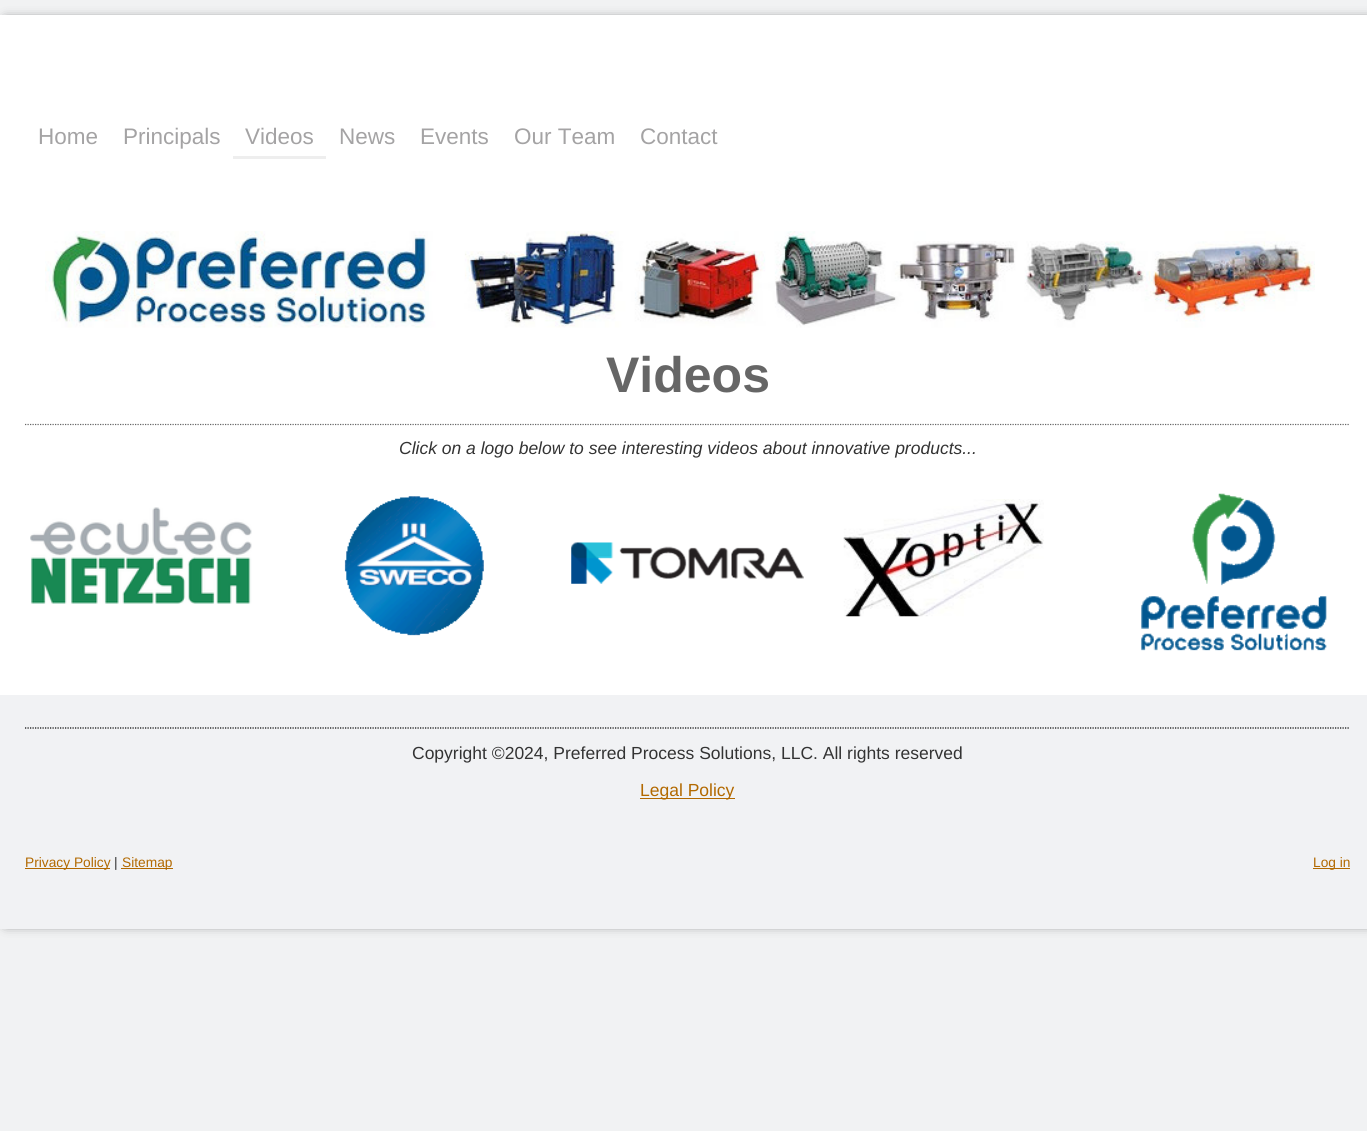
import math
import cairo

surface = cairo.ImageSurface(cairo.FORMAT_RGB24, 1367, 1131)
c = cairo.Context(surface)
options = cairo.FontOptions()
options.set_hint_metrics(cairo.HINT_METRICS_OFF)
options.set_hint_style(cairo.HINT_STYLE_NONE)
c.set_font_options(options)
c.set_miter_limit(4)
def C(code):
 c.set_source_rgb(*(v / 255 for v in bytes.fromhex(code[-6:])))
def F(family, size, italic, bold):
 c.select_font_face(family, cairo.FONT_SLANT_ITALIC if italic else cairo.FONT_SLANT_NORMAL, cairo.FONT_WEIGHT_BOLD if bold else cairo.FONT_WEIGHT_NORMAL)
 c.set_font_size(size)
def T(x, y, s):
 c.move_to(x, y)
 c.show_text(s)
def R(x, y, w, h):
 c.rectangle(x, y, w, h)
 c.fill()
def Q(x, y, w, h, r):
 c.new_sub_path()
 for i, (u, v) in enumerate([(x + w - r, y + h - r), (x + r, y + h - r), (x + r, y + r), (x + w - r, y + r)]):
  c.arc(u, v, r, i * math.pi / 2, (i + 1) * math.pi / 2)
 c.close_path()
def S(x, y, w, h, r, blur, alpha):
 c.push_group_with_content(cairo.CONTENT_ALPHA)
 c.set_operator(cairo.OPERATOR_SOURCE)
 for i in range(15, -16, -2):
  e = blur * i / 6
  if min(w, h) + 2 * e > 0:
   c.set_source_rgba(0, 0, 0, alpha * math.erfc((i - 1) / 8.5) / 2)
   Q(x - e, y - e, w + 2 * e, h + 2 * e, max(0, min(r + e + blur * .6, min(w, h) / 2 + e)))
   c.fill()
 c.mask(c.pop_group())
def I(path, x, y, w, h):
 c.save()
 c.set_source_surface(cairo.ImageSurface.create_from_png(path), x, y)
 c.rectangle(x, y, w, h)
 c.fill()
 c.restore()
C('f1f2f3')
c.paint()
C('333333')
S(6,21,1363,902,0,6,1)
C('ffffff')
R(0,15,1367,680)
F('Liberation Sans',22.5,0,0)
C('a4a3a4')
T(38,144,'Home')
T(123,144,'Principals')
C('eeeeee')
R(233,156,93,3)
C('a4a3a4')
T(245,144,'Videos')
T(339,144,'News')
T(420,144,'Events')
T(514,144,'Our Team')
T(640,144,'Contact')
I('1.png',45,231,1270,97)
F('Liberation Sans',50,0,1)
C('666666')
T(606,392,'Videos')
c.new_path()
c.move_to(25,424.5)
c.line_to(1350,424.5)
c.set_line_width(1.2)
c.set_dash([1.25,1.25])
c.stroke()
F('Liberation Sans',17.5,1,0)
C('333333')
T(399,454,'Click on a logo below to see interesting videos about innovative products...')
I('2.png',30,507,222,97)
I('3.png',344,496,140,140)
I('4.png',571,542,233,42)
I('5.png',843,499,201,118)
I('6.png',1141,493,186,158)
C('f1f2f4')
R(0,695,1367,234)
c.new_path()
c.move_to(25,728)
c.line_to(1350,728)
C('000000')
c.stroke()
F('Liberation Sans',17.5,0,0)
C('333333')
T(412,759,'Copyright ©2024, Preferred Process Solutions, LLC. All rights reserved')
C('b26900')
R(640,798,95,1)
T(640,796,'Legal Policy')
R(25,868,85,1)
F('Liberation Sans',13.75,0,0)
T(25,867,'Privacy Policy')
C('333333')
T(114,867,'|')
C('b26900')
R(121,868,52,1)
T(122,867,'Sitemap')
R(1313,868,37,1)
T(1313,867,'Log in')
surface.write_to_png('o.png')
